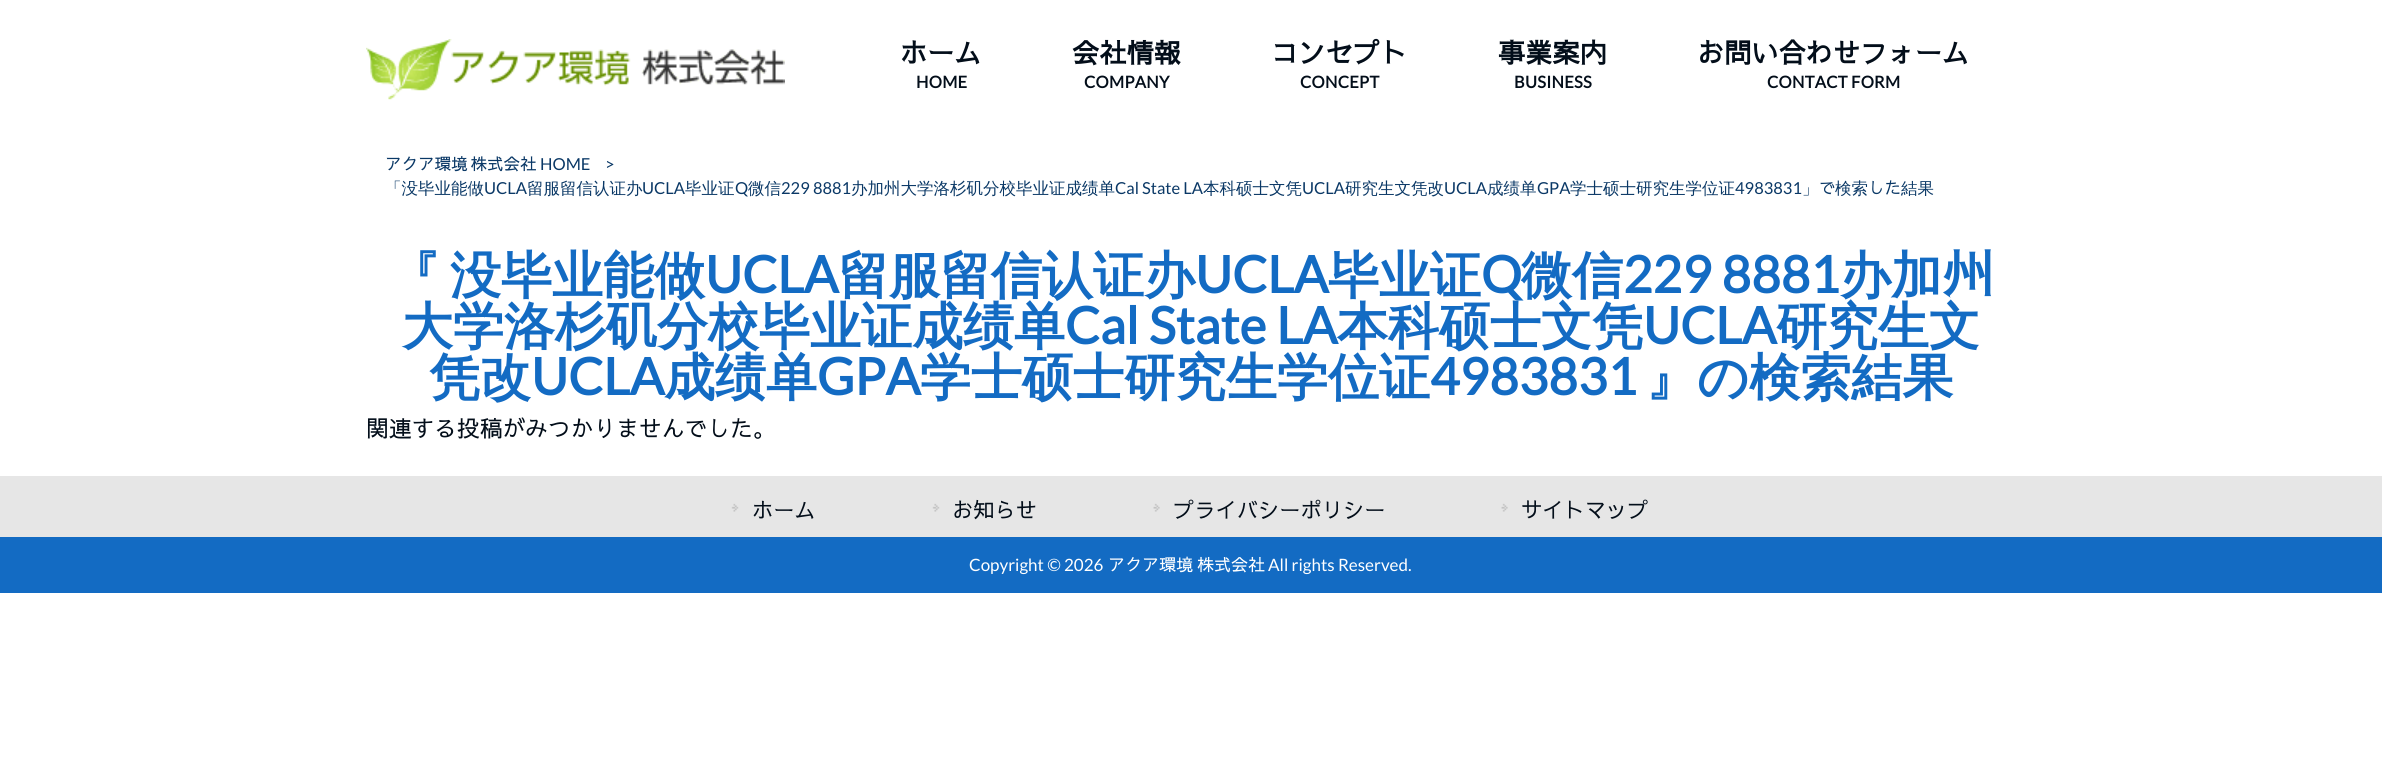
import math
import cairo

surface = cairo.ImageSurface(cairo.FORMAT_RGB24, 2382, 764)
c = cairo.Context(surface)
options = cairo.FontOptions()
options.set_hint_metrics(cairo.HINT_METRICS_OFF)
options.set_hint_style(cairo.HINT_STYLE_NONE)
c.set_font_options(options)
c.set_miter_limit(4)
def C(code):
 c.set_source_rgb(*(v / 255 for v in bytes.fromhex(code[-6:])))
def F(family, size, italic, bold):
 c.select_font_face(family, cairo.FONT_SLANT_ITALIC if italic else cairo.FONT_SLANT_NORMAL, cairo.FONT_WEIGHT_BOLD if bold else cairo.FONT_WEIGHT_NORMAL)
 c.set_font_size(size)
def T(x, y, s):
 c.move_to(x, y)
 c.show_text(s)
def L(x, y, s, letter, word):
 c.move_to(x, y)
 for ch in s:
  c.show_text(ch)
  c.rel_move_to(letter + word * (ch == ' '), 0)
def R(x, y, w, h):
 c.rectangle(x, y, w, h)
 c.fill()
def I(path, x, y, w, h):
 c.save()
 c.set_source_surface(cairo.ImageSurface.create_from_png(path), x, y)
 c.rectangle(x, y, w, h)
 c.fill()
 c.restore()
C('ffffff')
c.paint()
I('1.png',366,39,419,61)
F('Sawarabi Gothic',27,0,1)
C('030e1a')
L(900,63,'ホーム',.25,0)
F('Lato',16.5,0,1)
L(916,88,'HOME',.25,0)
F('Sawarabi Gothic',27,0,1)
L(1072,63,'会社情報',.25,0)
F('Lato',16.5,0,1)
L(1084,88,'COMPANY',.25,0)
F('Sawarabi Gothic',27,0,1)
L(1271,63,'コンセプト',.25,0)
F('Lato',16.5,0,1)
L(1300,88,'CONCEPT',.25,0)
F('Sawarabi Gothic',27,0,1)
L(1498,63,'事業案内',.25,0)
F('Lato',16.5,0,1)
L(1514,88,'BUSINESS',.25,0)
F('Sawarabi Gothic',27,0,1)
L(1697,63,'お問い合わせフォーム',.25,0)
F('Lato',16.5,0,1)
L(1767,88,'CONTACT FORM',.25,0)
F('Sawarabi Gothic',16.5,0,0)
C('0a3866')
L(385,170,'アクア環境 株式会社',0,-2)
F('Lato',16.5,0,0)
T(540,170,'HOME')
T(605,170,'>')
F('WenQuanYi Zen Hei Medium',16.5,0,0)
T(385,194,'「没毕业能做')
F('Lato',16.5,0,0)
T(484,194,'UCLA')
F('WenQuanYi Zen Hei Medium',16.5,0,0)
T(527,194,'留服留信认证办')
F('Lato',16.5,0,0)
T(642,194,'UCLA')
F('WenQuanYi Zen Hei Medium',16.5,0,0)
T(685,194,'毕业证')
F('Lato',16.5,0,0)
T(735,194,'Q')
F('WenQuanYi Zen Hei Medium',16.5,0,0)
T(748,194,'微信')
F('Lato',16.5,0,0)
T(781,194,'229 8881')
F('WenQuanYi Zen Hei Medium',16.5,0,0)
T(851,194,'办加州大学洛杉矶分校毕业证成绩单')
F('Lato',16.5,0,0)
T(1115,194,'Cal State LA')
F('WenQuanYi Zen Hei Medium',16.5,0,0)
T(1203,194,'本科硕士文凭')
F('Lato',16.5,0,0)
T(1302,194,'UCLA')
F('WenQuanYi Zen Hei Medium',16.5,0,0)
T(1345,194,'研究生文凭改')
F('Lato',16.5,0,0)
T(1444,194,'UCLA')
F('WenQuanYi Zen Hei Medium',16.5,0,0)
T(1487,194,'成绩单')
F('Lato',16.5,0,0)
T(1537,194,'GPA')
F('WenQuanYi Zen Hei Medium',16.5,0,0)
T(1570,194,'学士硕士研究生学位证')
F('Lato',16.5,0,0)
T(1735,194,'4983831')
F('WenQuanYi Zen Hei Medium',16.5,0,0)
T(1802,194,'」')
F('Sawarabi Gothic',16.5,0,0)
T(1819,194,'で')
F('WenQuanYi Zen Hei Medium',16.5,0,0)
T(1835,194,'検索')
F('Sawarabi Gothic',16.5,0,0)
T(1868,194,'した')
F('WenQuanYi Zen Hei Medium',16.5,0,0)
T(1901,194,'結果')
F('WenQuanYi Zen Hei',51,0,1)
C('136bc3')
T(389,293,'『')
T(450,293,'没毕业能做')
F('Lato',51,0,1)
T(705,293,'UCLA')
F('WenQuanYi Zen Hei',51,0,1)
T(838,293,'留服留信认证办')
F('Lato',51,0,1)
T(1195,293,'UCLA')
F('WenQuanYi Zen Hei',51,0,1)
T(1328,293,'毕业证')
F('Lato',51,0,1)
T(1481,293,'Q')
F('WenQuanYi Zen Hei',51,0,1)
T(1521,293,'微信')
F('Lato',51,0,1)
T(1623,293,'229 8881')
F('WenQuanYi Zen Hei',51,0,1)
T(1840,293,'办加')
F('Sawarabi Gothic',51,0,1)
T(1942,293,'州')
F('WenQuanYi Zen Hei',51,0,1)
T(402,344,'大学洛杉矶分校毕业证成绩单')
F('Lato',51,0,1)
T(1065,344,'Cal State LA')
F('WenQuanYi Zen Hei',51,0,1)
T(1337,344,'本科硕士文凭')
F('Lato',51,0,1)
T(1643,344,'UCLA')
F('WenQuanYi Zen Hei',51,0,1)
T(1776,344,'研究生文')
T(429,395,'凭改')
F('Lato',51,0,1)
T(531,395,'UCLA')
F('WenQuanYi Zen Hei',51,0,1)
T(664,395,'成绩单')
F('Lato',51,0,1)
T(817,395,'GPA')
F('WenQuanYi Zen Hei',51,0,1)
T(920,395,'学士硕士研究生学位证')
F('Lato',51,0,1)
T(1430,395,'4983831')
F('WenQuanYi Zen Hei',51,0,1)
T(1646,395,'』の検索結果')
F('Sawarabi Gothic',22.75,0,0)
C('030e1a')
T(366,437,'関連する投稿がみつかりませんでした。')
C('e6e6e6')
R(0,476,2382,61)
I('2.png',731,503,8,9)
F('Sawarabi Gothic',21.25,0,0)
C('030e1a')
T(752,518,'ホーム')
I('3.png',932,503,8,9)
T(952,518,'お知らせ')
I('4.png',1153,503,7,9)
T(1173,518,'プライバシーポリシー')
I('4.png',1501,503,7,9)
T(1521,518,'サイトマップ')
C('136bc3')
R(0,537,2382,56)
F('Lato',17,0,0)
C('ffffff')
T(969,571,'Copyright © 2026')
F('Sawarabi Gothic',17,0,0)
T(1108,571,'アクア環境')
T(1197,571,'株式会社')
F('Lato',17,0,0)
T(1268,571,'All rights Reserved.')
surface.write_to_png('o.png')
